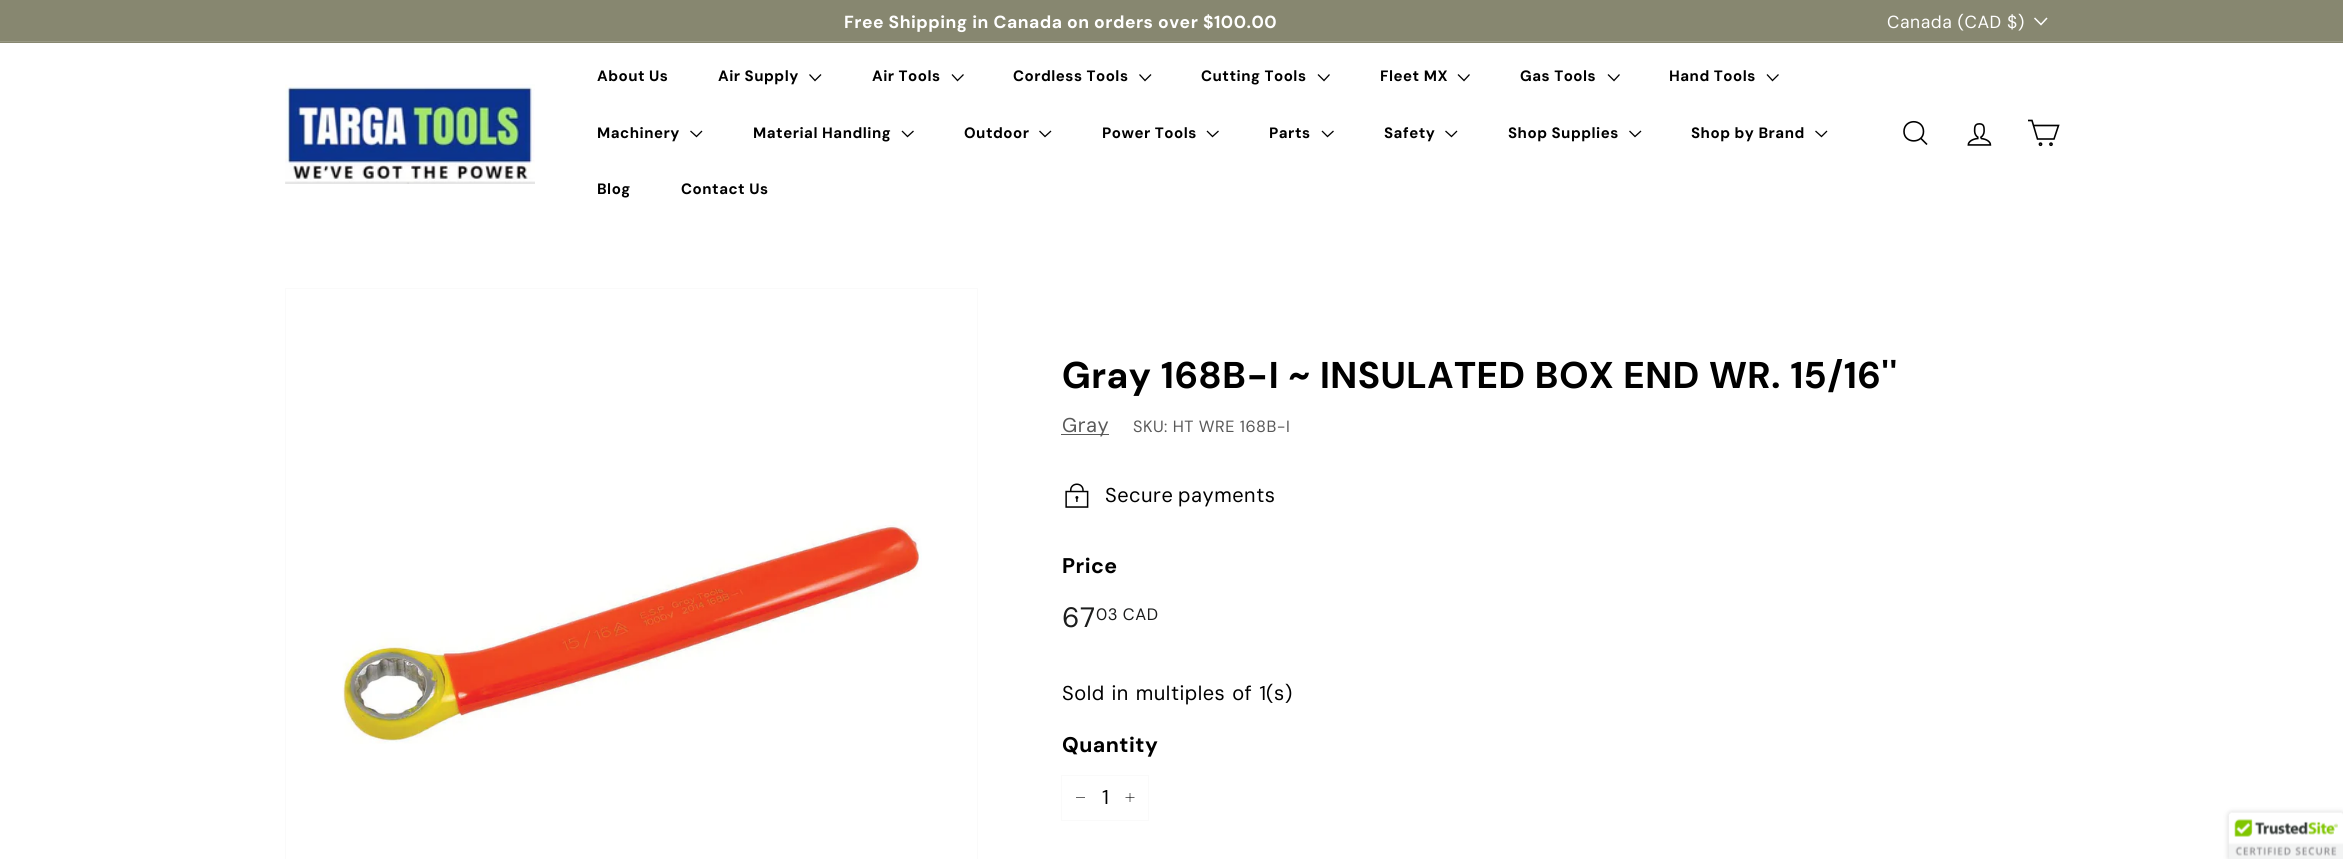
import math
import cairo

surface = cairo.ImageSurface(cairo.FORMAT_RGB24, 2343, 859)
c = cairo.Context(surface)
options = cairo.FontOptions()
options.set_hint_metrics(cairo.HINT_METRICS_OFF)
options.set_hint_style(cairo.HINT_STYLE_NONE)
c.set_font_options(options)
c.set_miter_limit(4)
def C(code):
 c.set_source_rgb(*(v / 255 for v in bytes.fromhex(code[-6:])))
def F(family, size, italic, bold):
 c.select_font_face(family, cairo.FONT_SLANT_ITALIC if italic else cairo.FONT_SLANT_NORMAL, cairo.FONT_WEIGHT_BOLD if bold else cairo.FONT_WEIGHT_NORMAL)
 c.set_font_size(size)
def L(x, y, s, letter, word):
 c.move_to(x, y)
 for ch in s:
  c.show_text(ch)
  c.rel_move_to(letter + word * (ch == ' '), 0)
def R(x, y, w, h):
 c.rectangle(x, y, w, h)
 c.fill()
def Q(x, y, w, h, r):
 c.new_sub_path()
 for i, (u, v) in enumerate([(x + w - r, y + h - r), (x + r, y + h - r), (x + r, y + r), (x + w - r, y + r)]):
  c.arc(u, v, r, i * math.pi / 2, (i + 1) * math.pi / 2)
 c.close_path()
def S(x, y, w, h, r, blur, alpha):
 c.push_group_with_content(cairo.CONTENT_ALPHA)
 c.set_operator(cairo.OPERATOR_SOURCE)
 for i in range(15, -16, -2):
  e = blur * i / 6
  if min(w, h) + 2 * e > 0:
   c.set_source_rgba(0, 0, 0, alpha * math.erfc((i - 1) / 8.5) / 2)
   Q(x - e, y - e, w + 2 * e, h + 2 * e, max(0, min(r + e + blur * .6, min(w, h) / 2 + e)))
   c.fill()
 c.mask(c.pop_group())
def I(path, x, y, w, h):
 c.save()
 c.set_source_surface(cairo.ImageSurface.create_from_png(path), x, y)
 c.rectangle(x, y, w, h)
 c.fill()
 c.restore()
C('ffffff')
c.paint()
C('878770')
R(0,0,2343,43)
F('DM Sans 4',17.5,0,1)
C('ffffff')
L(844,28,'Free Shipping in Canada on orders over $100.00',.5,0)
F('DM Sans',17.5,0,0)
L(1887,28,'Canada (CAD $)',.5,0)
c.new_path()
c.move_to(2034.5,18)
c.line_to(2041,24.5)
c.line_to(2047,18)
c.set_line_width(1.5)
c.stroke()
C('999985')
R(0,41,2343,1)
I('1.png',285,84,250,100)
F('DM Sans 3',15,0,1)
C('000000')
L(597,81,'About Us',.5,0)
L(718,81,'Air Supply',.5,0)
c.new_path()
c.move_to(809.5,74.5)
c.line_to(815,80.5)
c.line_to(821,74.5)
c.set_line_width(1.3)
c.stroke()
L(872,81,'Air Tools',.5,0)
c.new_path()
c.move_to(952,74.5)
c.line_to(957.5,80.5)
c.line_to(963.5,74.5)
c.stroke()
L(1013,81,'Cordless Tools',.5,0)
c.new_path()
c.move_to(1139.5,74.5)
c.line_to(1145,80.5)
c.line_to(1151,74.5)
c.stroke()
L(1201,81,'Cutting Tools',.5,0)
c.new_path()
c.move_to(1318,74.5)
c.line_to(1324,80.5)
c.line_to(1329.5,74.5)
c.stroke()
L(1380,81,'Fleet MX',.5,0)
c.new_path()
c.move_to(1458,74.5)
c.line_to(1464,80.5)
c.line_to(1469.5,74.5)
c.stroke()
L(1520,81,'Gas Tools',.5,0)
c.new_path()
c.move_to(1608,74.5)
c.line_to(1614,80.5)
c.line_to(1619.5,74.5)
c.stroke()
L(1669,81,'Hand Tools',.5,0)
c.new_path()
c.move_to(1767,74.5)
c.line_to(1772.5,80.5)
c.line_to(1778.5,74.5)
c.stroke()
L(597,138,'Machinery',.5,0)
c.new_path()
c.move_to(690.5,131)
c.line_to(696.5,136.5)
c.line_to(702,131)
c.stroke()
L(753,138,'Material Handling',.5,0)
c.new_path()
c.move_to(902,131)
c.line_to(907.5,136.5)
c.line_to(913.5,131)
c.stroke()
L(964,138,'Outdoor',.5,0)
c.new_path()
c.move_to(1039.5,131)
c.line_to(1045,136.5)
c.line_to(1051,131)
c.stroke()
L(1102,138,'Power Tools',.5,0)
c.new_path()
c.move_to(1207,131)
c.line_to(1212.5,136.5)
c.line_to(1218.5,131)
c.stroke()
L(1269,138,'Parts',.5,0)
c.new_path()
c.move_to(1322,131)
c.line_to(1327.5,136.5)
c.line_to(1333.5,131)
c.stroke()
L(1384,138,'Safety',.5,0)
c.new_path()
c.move_to(1445.5,131)
c.line_to(1451.5,136.5)
c.line_to(1457,131)
c.stroke()
L(1508,138,'Shop Supplies',.5,0)
c.new_path()
c.move_to(1629.5,131)
c.line_to(1635,136.5)
c.line_to(1641,131)
c.stroke()
L(1691,138,'Shop by Brand',.5,0)
c.new_path()
c.move_to(1815.5,131)
c.line_to(1821.5,136.5)
c.line_to(1827,131)
c.stroke()
L(597,194,'Blog',.5,0)
L(681,194,'Contact Us',.5,0)
c.new_path()
c.move_to(1923.5,131.5)
c.curve_to(1923.5,144,1904,144,1904,131.5)
c.curve_to(1904,118.5,1923.5,118.5,1923.5,131.5)
c.move_to(1927,144.5)
c.line_to(1921,138.5)
c.set_line_width(1.6)
c.stroke()
I('2.png',1967,123,25,23)
c.new_path()
c.move_to(2033.5,125.5)
c.line_to(2058.5,125.5)
c.line_to(2054,139)
c.line_to(2037.5,139)
c.line_to(2032,120.5)
c.line_to(2028,120.5)
c.stroke()
c.arc(2040.5,144.2,1.1,0,2 * math.pi)
c.stroke()
c.arc(2051,144.2,1.1,0,2 * math.pi)
c.stroke()
c.rectangle(285.5,288.5,692,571)
C('fafafa')
c.set_line_width(1)
c.stroke()
I('3.png',342,520,580,224)
F('DM Sans',37.2,0,1)
C('000000')
L(1062,388,'Gray 168B-I ~ INSULATED BOX END WR. 15/16\'\'',.95,0)
C('595959')
R(1061,434,48,1)
F('DM Sans',20,0,0)
L(1062,432,'Gray',.5,0)
F('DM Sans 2',16.25,0,0)
L(1133,432,'SKU: HT WRE 168B-I',.5,0)
I('4.png',1065,483,24,25)
F('DM Sans',20,0,0)
C('000000')
L(1105,502,'Secure payments',.5,-1)
F('DM Sans 2',21.25,0,1)
L(1062,573,'Price',.5,0)
F('DM Sans',28,0,0)
C('1c1d1d')
L(1062,627,'67',.5,0)
F('DM Sans 3',16.5,0,0)
L(1096,620,'03 CAD',.5,0)
F('DM Sans',20,0,0)
C('000000')
L(1062,700,'Sold in multiples of 1',.5,1)
L(1266,700,'(s)',.5,0)
F('DM Sans 2',21.25,0,1)
L(1062,752,'Quantity',.5,0)
c.rectangle(1061.5,775.5,87,45)
C('fafafa')
c.stroke()
C('666666')
R(1076,797,9,1)
F('DM Sans',20,0,0)
C('000000')
L(1102,804,'1',.5,0)
c.new_path()
c.move_to(1130,793)
c.line_to(1130,802)
c.move_to(1134.5,797.5)
c.line_to(1125.5,797.5)
c.set_line_width(.6)
c.stroke()
C('000000')
S(2229,813,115,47,2.5,3,.2)
I('5.png',2228,812,115,47)
surface.write_to_png('o.png')
